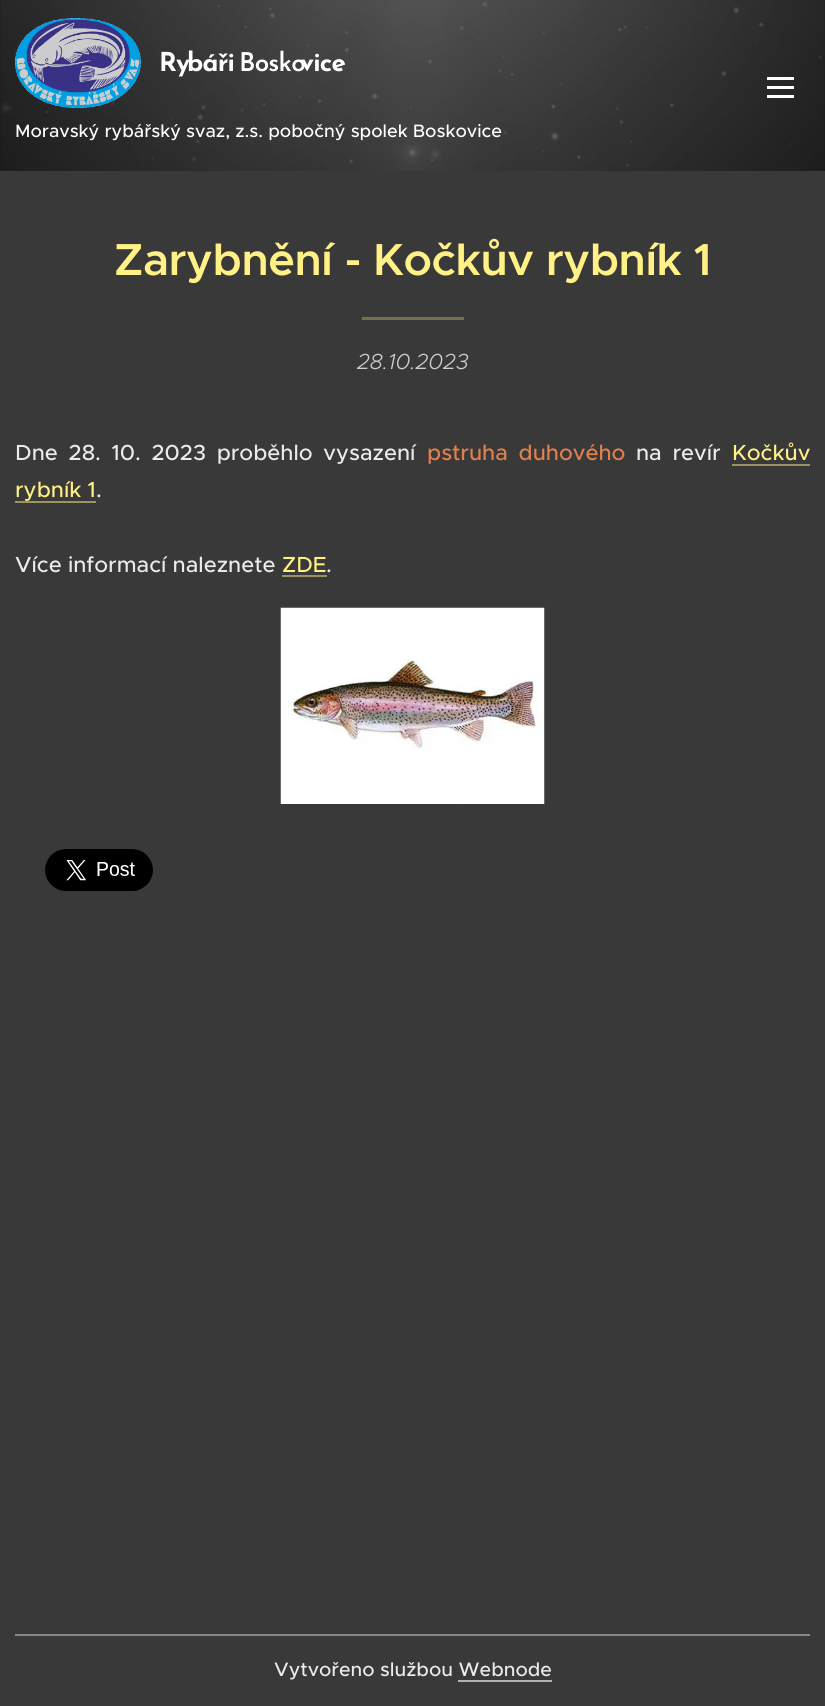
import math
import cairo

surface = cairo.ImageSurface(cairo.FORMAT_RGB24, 825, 1706)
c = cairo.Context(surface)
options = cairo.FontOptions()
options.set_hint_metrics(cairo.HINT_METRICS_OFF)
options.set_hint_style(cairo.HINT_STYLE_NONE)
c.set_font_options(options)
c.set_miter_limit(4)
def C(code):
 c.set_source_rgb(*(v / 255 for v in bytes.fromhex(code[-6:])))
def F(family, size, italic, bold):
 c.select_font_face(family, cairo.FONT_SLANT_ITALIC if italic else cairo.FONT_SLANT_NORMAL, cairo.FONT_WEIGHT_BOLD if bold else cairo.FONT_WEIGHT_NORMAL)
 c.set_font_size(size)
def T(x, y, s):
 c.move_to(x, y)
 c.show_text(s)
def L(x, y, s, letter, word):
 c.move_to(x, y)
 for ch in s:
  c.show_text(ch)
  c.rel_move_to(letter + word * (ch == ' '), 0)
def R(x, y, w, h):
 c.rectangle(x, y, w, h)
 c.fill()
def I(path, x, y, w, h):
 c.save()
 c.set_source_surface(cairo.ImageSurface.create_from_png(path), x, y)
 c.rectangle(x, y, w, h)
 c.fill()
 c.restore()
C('393939')
c.paint()
I('1.png',0,0,825,171)
I('2.png',15,18,126,90)
F('Josefin Sans',26,0,1)
C('ffffff')
L(159,71,'Ry',-.75,0)
L(187,71,'báři',-.75,0)
F('Josefin Sans SemiBold',26,0,0)
L(239,71,'Bosko',-.75,0)
F('Josefin Sans',26,0,1)
L(300,71,'vice',-.75,0)
F('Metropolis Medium',18,0,0)
T(15,137,'Moravský rybářský svaz, z.s. pobočný spolek Boskovice')
R(767,86,27,3)
R(767,77,27,3)
R(767,95,27,3)
F('Metropolis SemiBold',45,0,0)
C('fff186')
L(114,275,'Zarybnění - Kočkův rybník 1',-.45,0)
C('747050')
R(362,317,102,3)
F('Metropolis Light',21.9,1,0)
C('cecece')
T(357,369,'28.10.2023')
F('Metropolis Medium',21.9,0,0)
C('ebebeb')
L(15,460,'Dne 28. 10. 2023 proběhlo vysazení',0,4.5)
C('e2814e')
L(427,460,'pstruha duhového',0,4.5)
C('ebebeb')
L(636,460,'na revír',0,4.5)
C('fff186')
T(732,460,'Kočkův')
C('9c9560')
R(732,464,78,2)
C('fff186')
T(15,497,'rybník 1')
C('9c9560')
R(15,501,81,2)
C('ebebeb')
T(96,497,'.')
T(15,572,'Více informací naleznete')
C('fff186')
T(282,572,'ZDE')
C('9c9560')
R(282,575,45,2)
C('ebebeb')
T(326,572,'.')
I('3.png',280,607,265,197)
I('4.png',45,849,108,42)
C('888888')
R(15,1634,795,2)
F('Metropolis Medium',19.5,0,0)
C('ebebeb')
T(274,1676,'Vytvořeno službou Webnode')
C('b0b0b0')
R(458,1680,94,2)
surface.write_to_png('o.png')
